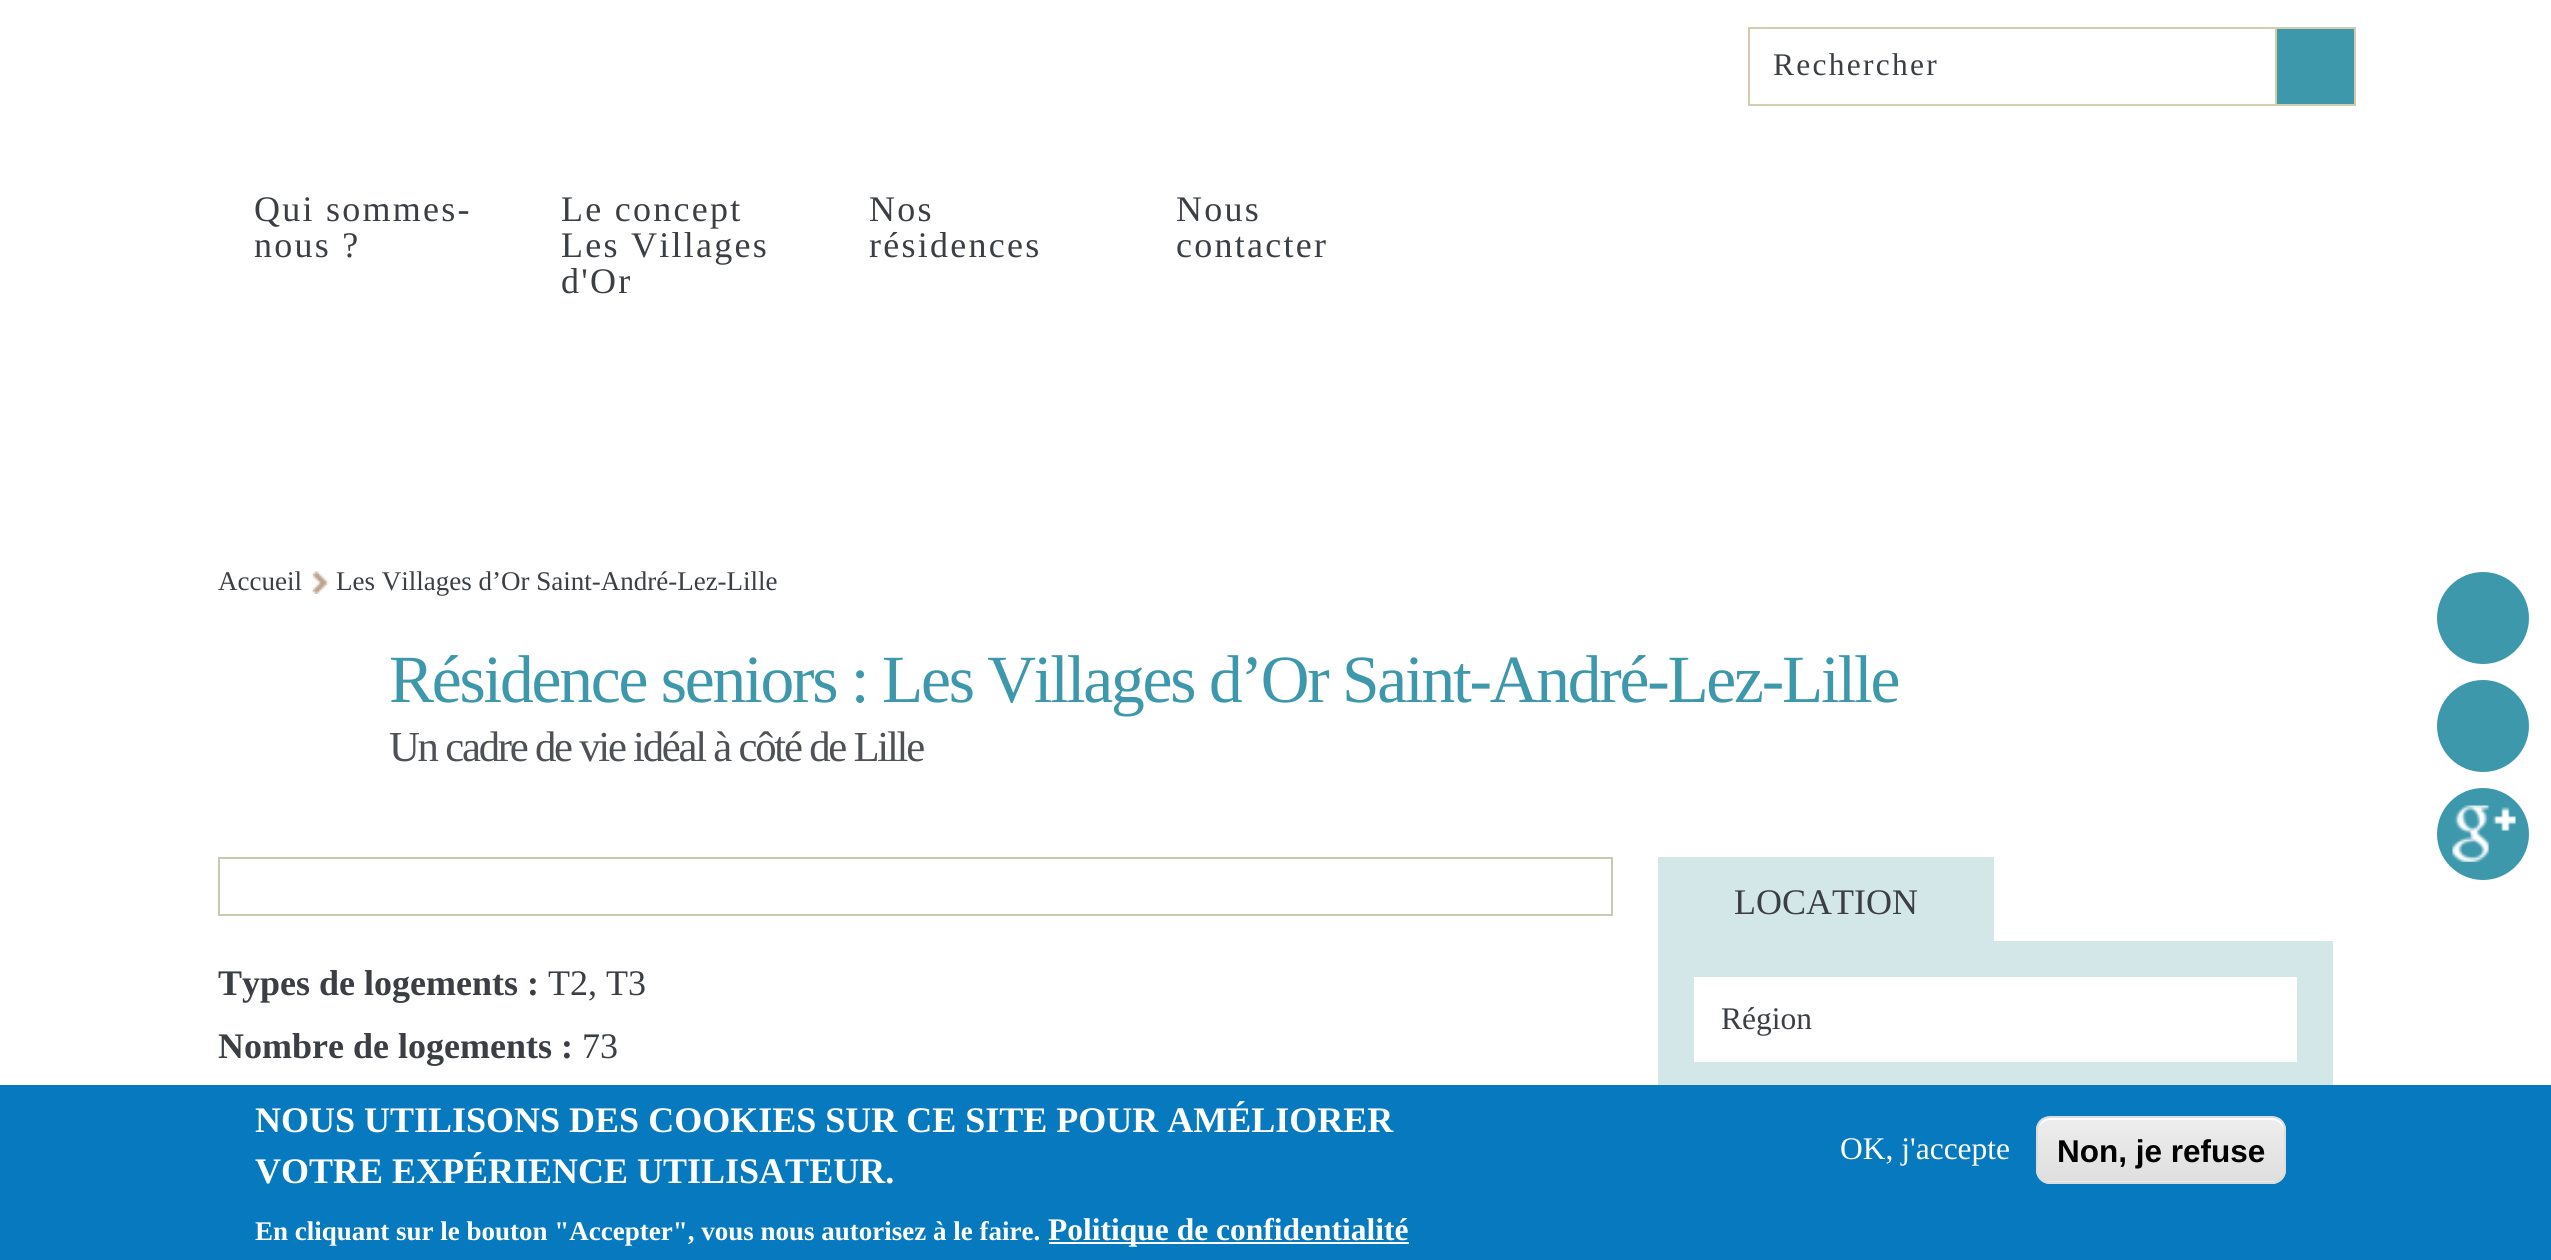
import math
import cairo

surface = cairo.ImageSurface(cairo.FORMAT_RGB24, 2551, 1260)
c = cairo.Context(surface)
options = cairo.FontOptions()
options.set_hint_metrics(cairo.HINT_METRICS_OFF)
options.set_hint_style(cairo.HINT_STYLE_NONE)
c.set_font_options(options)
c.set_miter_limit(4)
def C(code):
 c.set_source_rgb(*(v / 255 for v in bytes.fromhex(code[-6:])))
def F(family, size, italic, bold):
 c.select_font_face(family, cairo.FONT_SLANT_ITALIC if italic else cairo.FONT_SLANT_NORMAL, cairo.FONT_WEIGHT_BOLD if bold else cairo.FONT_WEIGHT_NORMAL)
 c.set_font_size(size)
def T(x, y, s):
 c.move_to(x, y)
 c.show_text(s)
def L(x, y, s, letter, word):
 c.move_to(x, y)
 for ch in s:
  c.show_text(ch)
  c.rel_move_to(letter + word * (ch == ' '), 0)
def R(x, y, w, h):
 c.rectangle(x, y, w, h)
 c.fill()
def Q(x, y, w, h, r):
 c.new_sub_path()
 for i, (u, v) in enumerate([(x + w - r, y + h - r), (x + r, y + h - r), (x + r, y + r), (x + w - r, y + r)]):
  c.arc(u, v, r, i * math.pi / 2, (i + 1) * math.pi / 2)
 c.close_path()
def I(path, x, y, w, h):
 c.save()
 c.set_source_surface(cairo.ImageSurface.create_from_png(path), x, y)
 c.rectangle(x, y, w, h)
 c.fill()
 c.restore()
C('ffffff')
c.paint()
c.rectangle(1749,28,606,77)
C('d5cbaf')
c.stroke()
F('Liberation Serif',31.5,0,0)
C('3b3f44')
L(1773,75,'Rechercher',2.25,0)
C('3d98ac')
R(2277,29,77,75)
C('d5cbaf')
R(2275,29,2,75)
F('Liberation Serif',36,0,0)
C('3b3f44')
L(254,221,'Qui sommes-',2.25,0)
L(254,257,'nous ?',2.25,0)
L(561,221,'Le concept',2.25,0)
L(561,257,'Les Villages',2.25,0)
L(561,293,'d\'Or',2.25,0)
L(869,221,'Nos',2.25,0)
L(869,257,'résidences',2.25,0)
L(1176,221,'Nous',2.25,0)
L(1176,257,'contacter',2.25,0)
F('Liberation Serif',27,0,0)
T(218,590,'Accueil')
I('1.png',312,571,17,23)
T(336,590,'Les Villages d’Or Saint-André-Lez-Lille')
F('Liberation Serif',67.5,0,0)
C('3d98ac')
L(389,702,'Résidence seniors : Les Villages d’Or Saint-André-Lez-Lille',-2.25,0)
F('Liberation Serif',42.75,0,0)
C('4e5257')
L(389,761,'Un cadre de vie idéal à côté de Lille',-2.25,0)
c.rectangle(219,858,1393,57)
C('cacab0')
c.stroke()
F('Liberation Serif',36,0,1)
C('3b3f44')
T(218,995,'Types de logements :')
F('Liberation Serif',36,0,0)
T(548,995,'T2, T3')
F('Liberation Serif',36,0,1)
T(218,1058,'Nombre de logements :')
F('Liberation Serif',36,0,0)
T(582,1058,'73')
C('d3e7e9')
R(1658,857,336,84)
C('3b3f44')
T(1734,914,'LOCATION')
C('d3e7e9')
R(1658,941,675,144)
C('ffffff')
R(1694,977,603,85)
F('Liberation Serif',31.5,0,0)
C('3b3f44')
T(1721,1029,'Région')
C('3d98ac')
c.new_path()
c.arc(2483,618,46,0,2 * math.pi)
c.fill()
c.arc(2483,726,46,0,2 * math.pi)
c.fill()
c.arc(2483,834,46,0,2 * math.pi)
c.fill()
I('2.png',2452,805,64,57)
C('0779bf')
R(0,1085,2551,175)
F('Liberation Serif',36,0,1)
C('ffffff')
T(255,1132,'NOUS UTILISONS DES COOKIES SUR CE SITE POUR AMÉLIORER')
T(255,1183,'VOTRE EXPÉRIENCE UTILISATEUR.')
F('Liberation Serif',27,0,1)
T(255,1240,'En cliquant sur le bouton "Accepter", vous nous autorisez à le faire.')
R(1049,1242,360,2)
F('Liberation Serif',31.5,0,1)
T(1048,1240,'Politique de confidentialité')
F('Liberation Serif',31.5,0,0)
T(1840,1159,'OK, j\'accepte')
c.save()
Q(2036,1116,250,68,14)
c.clip()
gradient = cairo.LinearGradient(2161,1118,2161,1181)
gradient.add_color_stop_rgba(.05,0.929,0.929,0.929,1)
gradient.add_color_stop_rgba(1,0.875,0.875,0.875,1)
c.set_source(gradient)
R(2036,1118,250,63)
gradient = cairo.LinearGradient(2161,1181,2161,1244)
gradient.add_color_stop_rgba(.05,0.929,0.929,0.929,1)
gradient.add_color_stop_rgba(1,0.875,0.875,0.875,1)
c.set_source(gradient)
R(2036,1181,250,3)
c.restore()
c.new_path()
c.move_to(2050,1120)
c.line_to(2272,1120)
c.curve_to(2279,1120,2284,1126,2284,1132)
c.line_to(2284,1129)
c.curve_to(2284,1123,2279,1118,2273,1118)
c.line_to(2050,1118)
c.curve_to(2044,1118,2040,1122,2039,1127)
c.curve_to(2041,1123,2046,1120,2050,1120)
c.close_path()
c.fill()
Q(2037,1117,248,66,13)
C('dcdcdc')
c.stroke()
F('Liberation Sans',31.5,0,1)
C('000000')
T(2057,1162,'Non, je refuse')
surface.write_to_png('o.png')
